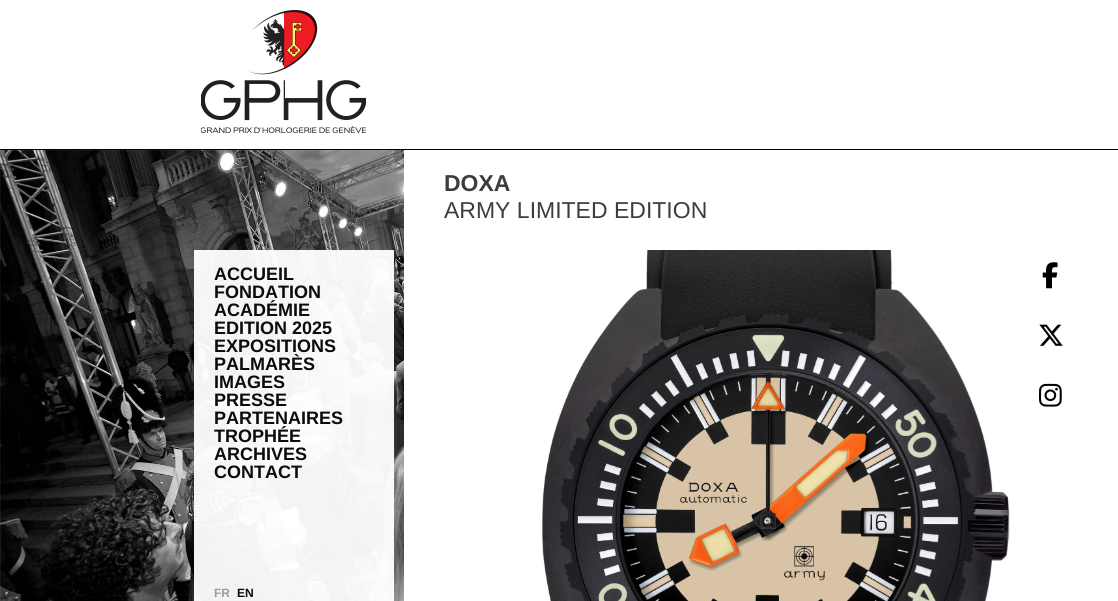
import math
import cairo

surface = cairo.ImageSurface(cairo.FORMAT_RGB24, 1118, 601)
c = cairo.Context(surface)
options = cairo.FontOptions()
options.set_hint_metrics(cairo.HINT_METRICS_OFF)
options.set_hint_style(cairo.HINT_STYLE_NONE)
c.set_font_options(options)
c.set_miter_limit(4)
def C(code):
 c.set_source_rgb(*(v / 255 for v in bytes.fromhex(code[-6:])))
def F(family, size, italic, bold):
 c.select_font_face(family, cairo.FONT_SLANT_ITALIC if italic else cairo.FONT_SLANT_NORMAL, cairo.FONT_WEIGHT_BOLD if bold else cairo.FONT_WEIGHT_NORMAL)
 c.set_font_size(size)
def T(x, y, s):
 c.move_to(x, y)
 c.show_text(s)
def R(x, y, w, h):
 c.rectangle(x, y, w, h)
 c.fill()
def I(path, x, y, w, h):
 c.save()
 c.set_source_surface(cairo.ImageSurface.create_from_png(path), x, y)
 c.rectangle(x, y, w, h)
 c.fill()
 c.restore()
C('ffffff')
c.paint()
C('000000')
R(0,149,1118,1)
I('1.png',201,10,165,123)
I('2.png',0,150,404,451)
F('Liberation Sans',23,0,1)
C('3d3d3c')
T(444,191,'DOXA')
F('Liberation Sans',23,0,0)
T(444,218,'ARMY LIMITED EDITION')
I('3.png',542,250,468,351)
I('4.png',1042,262,16,27)
I('5.png',1039,324,24,22)
I('6.png',1039,383,23,24)
c.set_source_rgba(1,1,1,0.95)
R(194,250,200,351)
F('Liberation Sans',18,0,1)
C('0c0c0c')
T(214,280,'ACCUEIL')
T(214,298,'FONDATION')
T(214,316,'ACADÉMIE')
T(214,334,'EDITION 2025')
T(214,352,'EXPOSITIONS')
T(214,370,'PALMARÈS')
T(214,388,'IMAGES')
T(214,406,'PRESSE')
T(214,424,'PARTENAIRES')
T(214,442,'TROPHÉE')
T(214,460,'ARCHIVES')
T(214,478,'CONTACT')
F('Liberation Sans',12,0,1)
C('9d9d9d')
T(214,597,'FR')
C('0c0c0c')
T(237,597,'EN')
surface.write_to_png('o.png')
